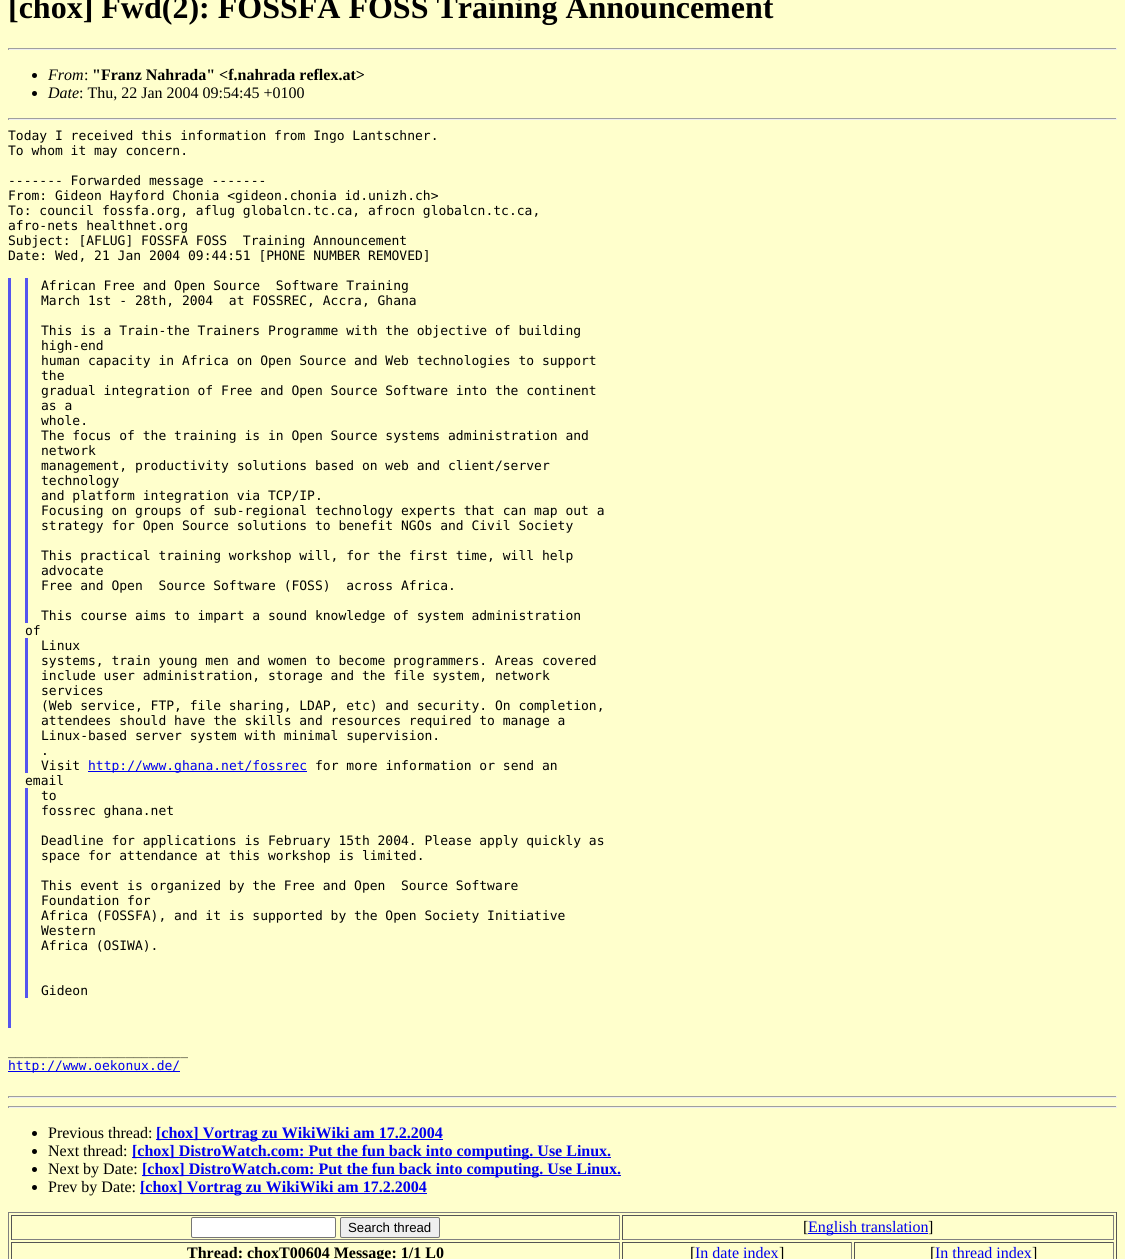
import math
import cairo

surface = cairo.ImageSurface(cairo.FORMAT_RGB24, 1125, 1259)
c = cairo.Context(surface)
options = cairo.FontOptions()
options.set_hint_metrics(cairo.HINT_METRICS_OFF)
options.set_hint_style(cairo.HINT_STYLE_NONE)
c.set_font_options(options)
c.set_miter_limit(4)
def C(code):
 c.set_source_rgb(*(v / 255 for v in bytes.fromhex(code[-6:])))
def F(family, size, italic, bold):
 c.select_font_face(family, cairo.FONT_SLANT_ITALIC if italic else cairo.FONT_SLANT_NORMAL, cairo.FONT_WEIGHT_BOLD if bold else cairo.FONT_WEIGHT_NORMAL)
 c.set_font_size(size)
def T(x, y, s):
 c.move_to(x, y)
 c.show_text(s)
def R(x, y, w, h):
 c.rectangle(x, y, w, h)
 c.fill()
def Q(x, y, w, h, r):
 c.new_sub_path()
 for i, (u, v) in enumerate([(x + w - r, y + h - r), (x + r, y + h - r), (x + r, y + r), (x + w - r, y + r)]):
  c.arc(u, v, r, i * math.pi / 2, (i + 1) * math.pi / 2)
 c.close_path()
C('ffffcc')
c.paint()
F('Liberation Serif',32,0,1)
C('000000')
T(8,18,'[chox] Fwd(2): FOSSFA FOSS Training Announcement')
C('9f9f9f')
R(8,48,1109,1)
C('eeeeee')
R(1116,48,1,2)
R(8,49,1109,1)
C('9f9f9f')
R(8,48,1,2)
C('000000')
c.new_path()
c.arc(34.5,75.5,2.5,0,2 * math.pi)
c.fill()
F('Liberation Serif',16,1,0)
T(48,80,'From')
F('Liberation Serif',16,0,0)
T(84,80,':')
F('Liberation Serif',16,0,1)
T(92,80,'"Franz Nahrada" <f.nahrada reflex.at>')
c.new_path()
c.arc(34.5,93.5,2.5,0,2 * math.pi)
c.fill()
F('Liberation Serif',16,1,0)
T(48,98,'Date')
F('Liberation Serif',16,0,0)
T(79,98,': Thu, 22 Jan 2004 09:54:45 +0100')
C('9f9f9f')
R(8,118,1109,1)
C('eeeeee')
R(1116,118,1,2)
R(8,119,1109,1)
C('9f9f9f')
R(8,118,1,2)
F('DejaVu Sans Mono',13,0,0)
C('000000')
T(8,140,'Today I received this information from Ingo Lantschner.')
T(8,155,'To whom it may concern.')
T(8,185,'------- Forwarded message -------')
T(8,200,'From: Gideon Hayford Chonia <gideon.chonia id.unizh.ch>')
T(8,215,'To: council fossfa.org, aflug globalcn.tc.ca, afrocn globalcn.tc.ca,')
T(8,230,'afro-nets healthnet.org')
T(8,245,'Subject: [AFLUG] FOSSFA FOSS  Training Announcement')
T(8,260,'Date: Wed, 21 Jan 2004 09:44:51 [PHONE NUMBER REMOVED]')
C('5555ee')
R(8,278,3,750)
R(25,278,3,345)
C('000000')
T(41,290,'African Free and Open Source  Software Training')
T(41,305,'March 1st - 28th, 2004  at FOSSREC, Accra, Ghana')
T(41,335,'This is a Train-the Trainers Programme with the objective of building')
T(41,350,'high-end')
T(41,365,'human capacity in Africa on Open Source and Web technologies to support')
T(41,380,'the')
T(41,395,'gradual integration of Free and Open Source Software into the continent')
T(41,410,'as a')
T(41,425,'whole.')
T(41,440,'The focus of the training is in Open Source systems administration and')
T(41,455,'network')
T(41,470,'management, productivity solutions based on web and client/server')
T(41,485,'technology')
T(41,500,'and platform integration via TCP/IP.')
T(41,515,'Focusing on groups of sub-regional technology experts that can map out a')
T(41,530,'strategy for Open Source solutions to benefit NGOs and Civil Society')
T(41,560,'This practical training workshop will, for the first time, will help')
T(41,575,'advocate')
T(41,590,'Free and Open  Source Software (FOSS)  across Africa.')
T(41,620,'This course aims to impart a sound knowledge of system administration')
T(25,635,'of')
C('5555ee')
R(25,638,3,135)
C('000000')
T(41,650,'Linux')
T(41,665,'systems, train young men and women to become programmers. Areas covered')
T(41,680,'include user administration, storage and the file system, network')
T(41,695,'services')
T(41,710,'(Web service, FTP, file sharing, LDAP, etc) and security. On completion,')
T(41,725,'attendees should have the skills and resources required to manage a')
T(41,740,'Linux-based server system with minimal supervision.')
T(41,755,'.')
T(41,770,'Visit')
C('0000ee')
R(88,771,219,1)
T(88,770,'http://www.ghana.net/fossrec')
C('000000')
T(315,770,'for more information or send an')
T(25,785,'email')
C('5555ee')
R(25,788,3,210)
C('000000')
T(41,800,'to')
T(41,815,'fossrec ghana.net')
T(41,845,'Deadline for applications is February 15th 2004. Please apply quickly as')
T(41,860,'space for attendance at this workshop is limited.')
T(41,890,'This event is organized by the Free and Open  Source Software')
T(41,905,'Foundation for')
T(41,920,'Africa (FOSSFA), and it is supported by the Open Society Initiative')
T(41,935,'Western')
T(41,950,'Africa (OSIWA).')
T(41,995,'Gideon')
T(8,1055,'_______________________')
C('0000ee')
R(8,1071,172,1)
T(8,1070,'http://www.oekonux.de/')
C('9f9f9f')
R(8,1096,1109,1)
C('eeeeee')
R(1116,1096,1,2)
R(8,1097,1109,1)
C('9f9f9f')
R(8,1096,1,2)
R(8,1106,1109,1)
C('eeeeee')
R(1116,1106,1,2)
R(8,1107,1109,1)
C('9f9f9f')
R(8,1106,1,2)
C('000000')
c.new_path()
c.arc(34.5,1133.5,2.5,0,2 * math.pi)
c.fill()
F('Liberation Serif',16,0,0)
T(48,1138,'Previous thread:')
C('0000ee')
R(156,1139,287,1)
F('Liberation Serif',16,0,1)
T(156,1138,'[chox] Vortrag zu WikiWiki am 17.2.2004')
C('000000')
c.new_path()
c.arc(34.5,1151.5,2.5,0,2 * math.pi)
c.fill()
F('Liberation Serif',16,0,0)
T(48,1156,'Next thread:')
C('0000ee')
R(132,1157,479,1)
F('Liberation Serif',16,0,1)
T(132,1156,'[chox] DistroWatch.com: Put the fun back into computing. Use Linux.')
C('000000')
c.new_path()
c.arc(34.5,1169.5,2.5,0,2 * math.pi)
c.fill()
F('Liberation Serif',16,0,0)
T(48,1174,'Next by Date:')
C('0000ee')
R(142,1175,479,1)
F('Liberation Serif',16,0,1)
T(142,1174,'[chox] DistroWatch.com: Put the fun back into computing. Use Linux.')
C('000000')
c.new_path()
c.arc(34.5,1187.5,2.5,0,2 * math.pi)
c.fill()
F('Liberation Serif',16,0,0)
T(48,1192,'Prev by Date:')
C('0000ee')
R(140,1193,287,1)
F('Liberation Serif',16,0,1)
T(140,1192,'[chox] Vortrag zu WikiWiki am 17.2.2004')
C('808080')
R(8,1212,1109,1)
C('555555')
R(1116,1212,1,47)
C('808080')
R(8,1212,1,47)
C('555555')
R(11,1215,609,1)
C('808080')
R(619,1215,1,25)
R(11,1239,609,1)
C('555555')
R(11,1215,1,25)
C('ffffff')
Q(191.5,1217.5,144,20,1.5)
c.fill_preserve()
C('767676')
c.set_line_width(1)
c.stroke()
C('efefef')
Q(340.5,1217.5,99,20,1.5)
c.fill_preserve()
C('767676')
c.stroke()
F('Liberation Sans',13.25,0,0)
C('000000')
T(348,1232,'Search thread')
C('555555')
R(622,1215,492,1)
C('808080')
R(1113,1215,1,25)
R(622,1239,492,1)
C('555555')
R(622,1215,1,25)
F('Liberation Serif',16,0,0)
C('000000')
T(803,1232,'[')
C('0000ee')
R(808,1233,120,1)
T(808,1232,'English translation')
C('000000')
T(928,1232,']')
C('555555')
R(11,1242,609,1)
C('808080')
R(619,1242,1,17)
C('555555')
R(11,1242,1,17)
F('Liberation Serif',16,0,1)
C('000000')
T(187,1258,'Thread: choxT00604 Message: 1/1 L0')
C('555555')
R(622,1242,230,1)
C('808080')
R(851,1242,1,17)
C('555555')
R(622,1242,1,17)
F('Liberation Serif',16,0,0)
C('000000')
T(690,1258,'[')
C('0000ee')
T(695,1258,'In date index')
C('000000')
T(779,1258,']')
C('555555')
R(854,1242,260,1)
C('808080')
R(1113,1242,1,17)
C('555555')
R(854,1242,1,17)
C('000000')
T(930,1258,'[')
C('0000ee')
T(935,1258,'In thread index')
C('000000')
T(1032,1258,']')
surface.write_to_png('o.png')
